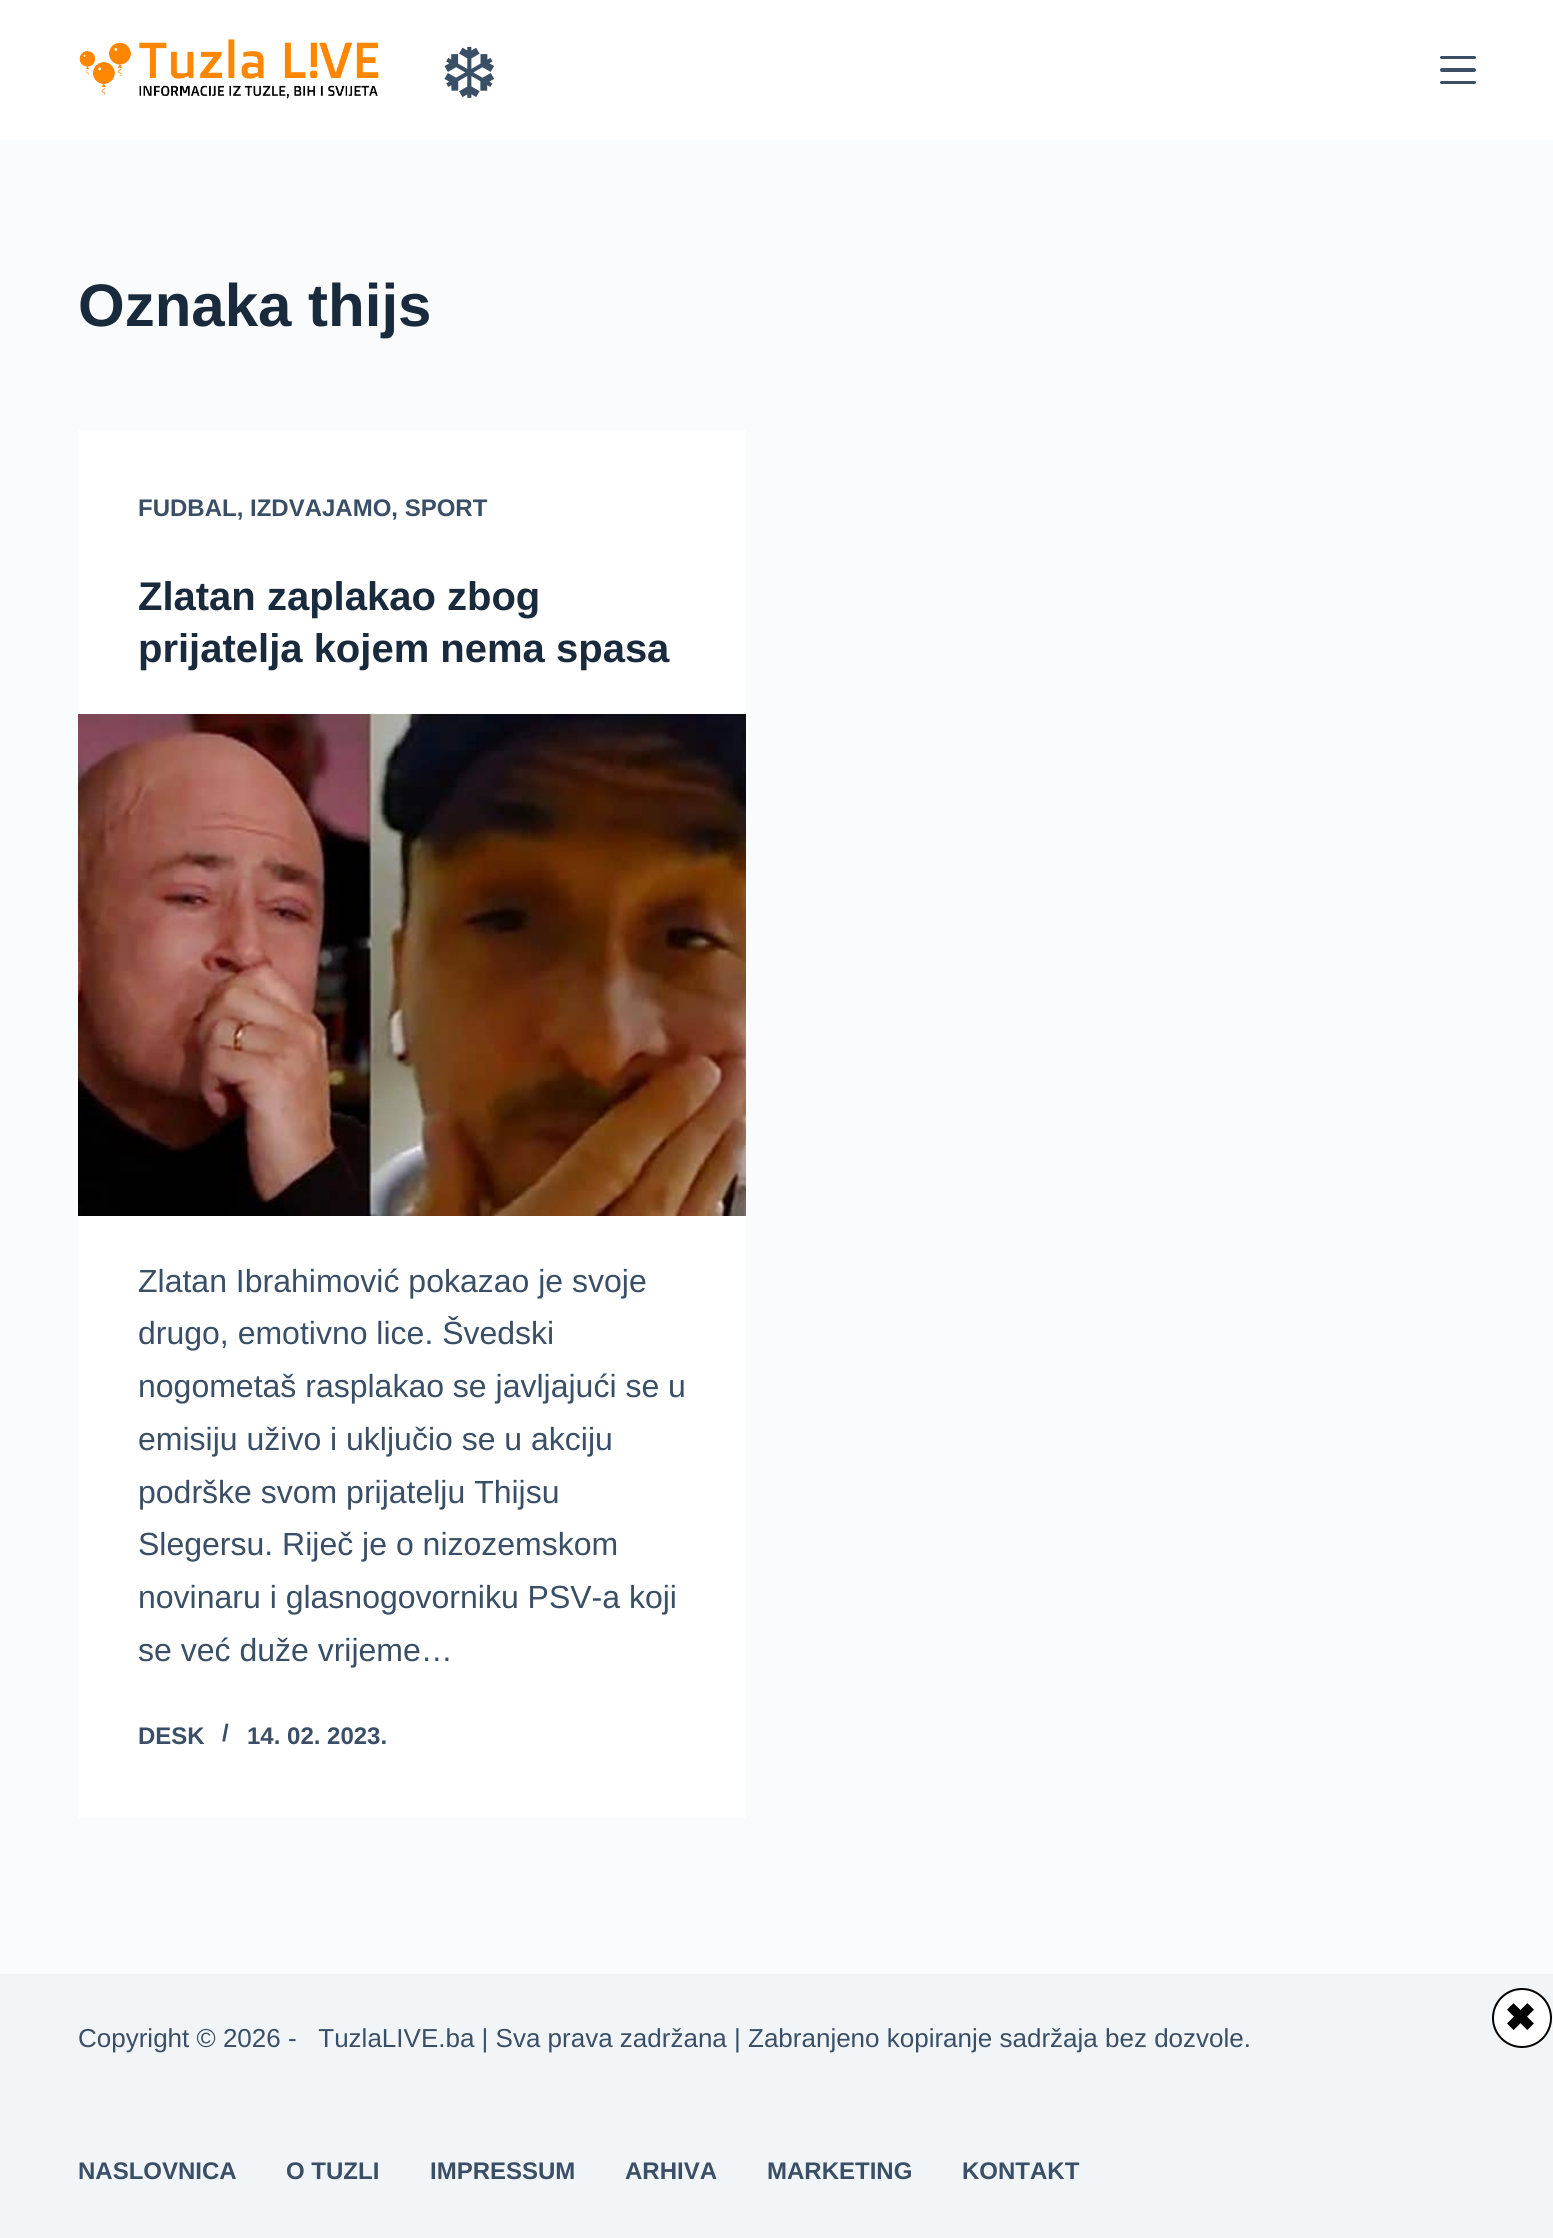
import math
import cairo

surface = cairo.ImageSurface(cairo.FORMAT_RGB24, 1553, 2238)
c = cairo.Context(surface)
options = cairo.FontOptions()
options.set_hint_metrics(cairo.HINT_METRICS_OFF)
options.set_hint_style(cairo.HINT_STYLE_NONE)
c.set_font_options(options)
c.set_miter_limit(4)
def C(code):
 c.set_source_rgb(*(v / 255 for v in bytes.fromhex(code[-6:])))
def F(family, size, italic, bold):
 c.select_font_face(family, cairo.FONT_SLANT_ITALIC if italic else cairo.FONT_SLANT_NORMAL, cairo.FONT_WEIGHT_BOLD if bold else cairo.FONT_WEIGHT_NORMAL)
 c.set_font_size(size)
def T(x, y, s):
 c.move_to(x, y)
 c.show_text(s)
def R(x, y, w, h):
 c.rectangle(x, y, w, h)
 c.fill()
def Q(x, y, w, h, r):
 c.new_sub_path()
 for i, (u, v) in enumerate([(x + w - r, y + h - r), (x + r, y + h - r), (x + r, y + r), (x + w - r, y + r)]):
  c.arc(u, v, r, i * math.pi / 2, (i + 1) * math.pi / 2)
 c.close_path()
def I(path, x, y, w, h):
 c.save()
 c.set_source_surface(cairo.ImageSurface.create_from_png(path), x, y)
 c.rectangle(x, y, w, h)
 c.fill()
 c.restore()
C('fafbfc')
c.paint()
C('ffffff')
R(0,0,1553,140)
F('DejaVu Sans',70,0,0)
C('3a4f66')
T(440,98,'❆')
I('1.png',79,39,300,60)
Q(1440,56,36,3,1.5)
c.fill()
Q(1440,68,36,4,2)
c.fill()
Q(1440,81,36,3,1.5)
c.fill()
F('Liberation Sans',60,0,1)
C('192a3d')
T(78,326,'Oznaka thijs')
C('ffffff')
R(78,430,668,1388)
F('Liberation Sans',24,0,1)
C('3a4f66')
T(138,516,'FUDBAL, IZDVAJAMO, SPORT')
F('Liberation Sans',40,0,1)
C('192a3d')
T(138,610,'Zlatan zaplakao zbog')
T(138,662,'prijatelja kojem nema spasa')
I('2.png',78,714,668,502)
F('Liberation Sans',32,0,0)
C('3a4f66')
T(138,1292,'Zlatan Ibrahimović pokazao je svoje')
T(138,1344,'drugo, emotivno lice. Švedski')
T(138,1397,'nogometaš rasplakao se javljajući se u')
T(138,1450,'emisiju uživo i uključio se u akciju')
T(138,1503,'podrške svom prijatelju Thijsu')
T(138,1555,'Slegersu. Riječ je o nizozemskom')
T(138,1608,'novinaru i glasnogovorniku PSV-a koji')
T(138,1661,'se već duže vrijeme…')
F('Liberation Sans',24,0,1)
T(138,1744,'DESK')
T(222,1741,'/')
T(247,1744,'14. 02. 2023.')
C('f2f5f7')
R(0,1974,1553,264)
F('Liberation Sans',26,0,0)
C('3a4f66')
T(78,2047,'Copyright © 2026 -   TuzlaLIVE.ba | Sva prava zadržana | Zabranjeno kopiranje sadržaja bez dozvole.')
F('Liberation Sans',24,0,1)
T(78,2179,'NASLOVNICA')
T(286,2179,'O TUZLI')
T(430,2179,'IMPRESSUM')
T(625,2179,'ARHIVA')
T(767,2179,'MARKETING')
T(962,2179,'KONTAKT')
C('ffffff')
c.new_path()
c.arc(1522,2018,29,0,2 * math.pi)
c.fill_preserve()
C('000000')
c.stroke()
F('DejaVu Sans',38,0,1)
T(1504,2031,'✖')
surface.write_to_png('o.png')
